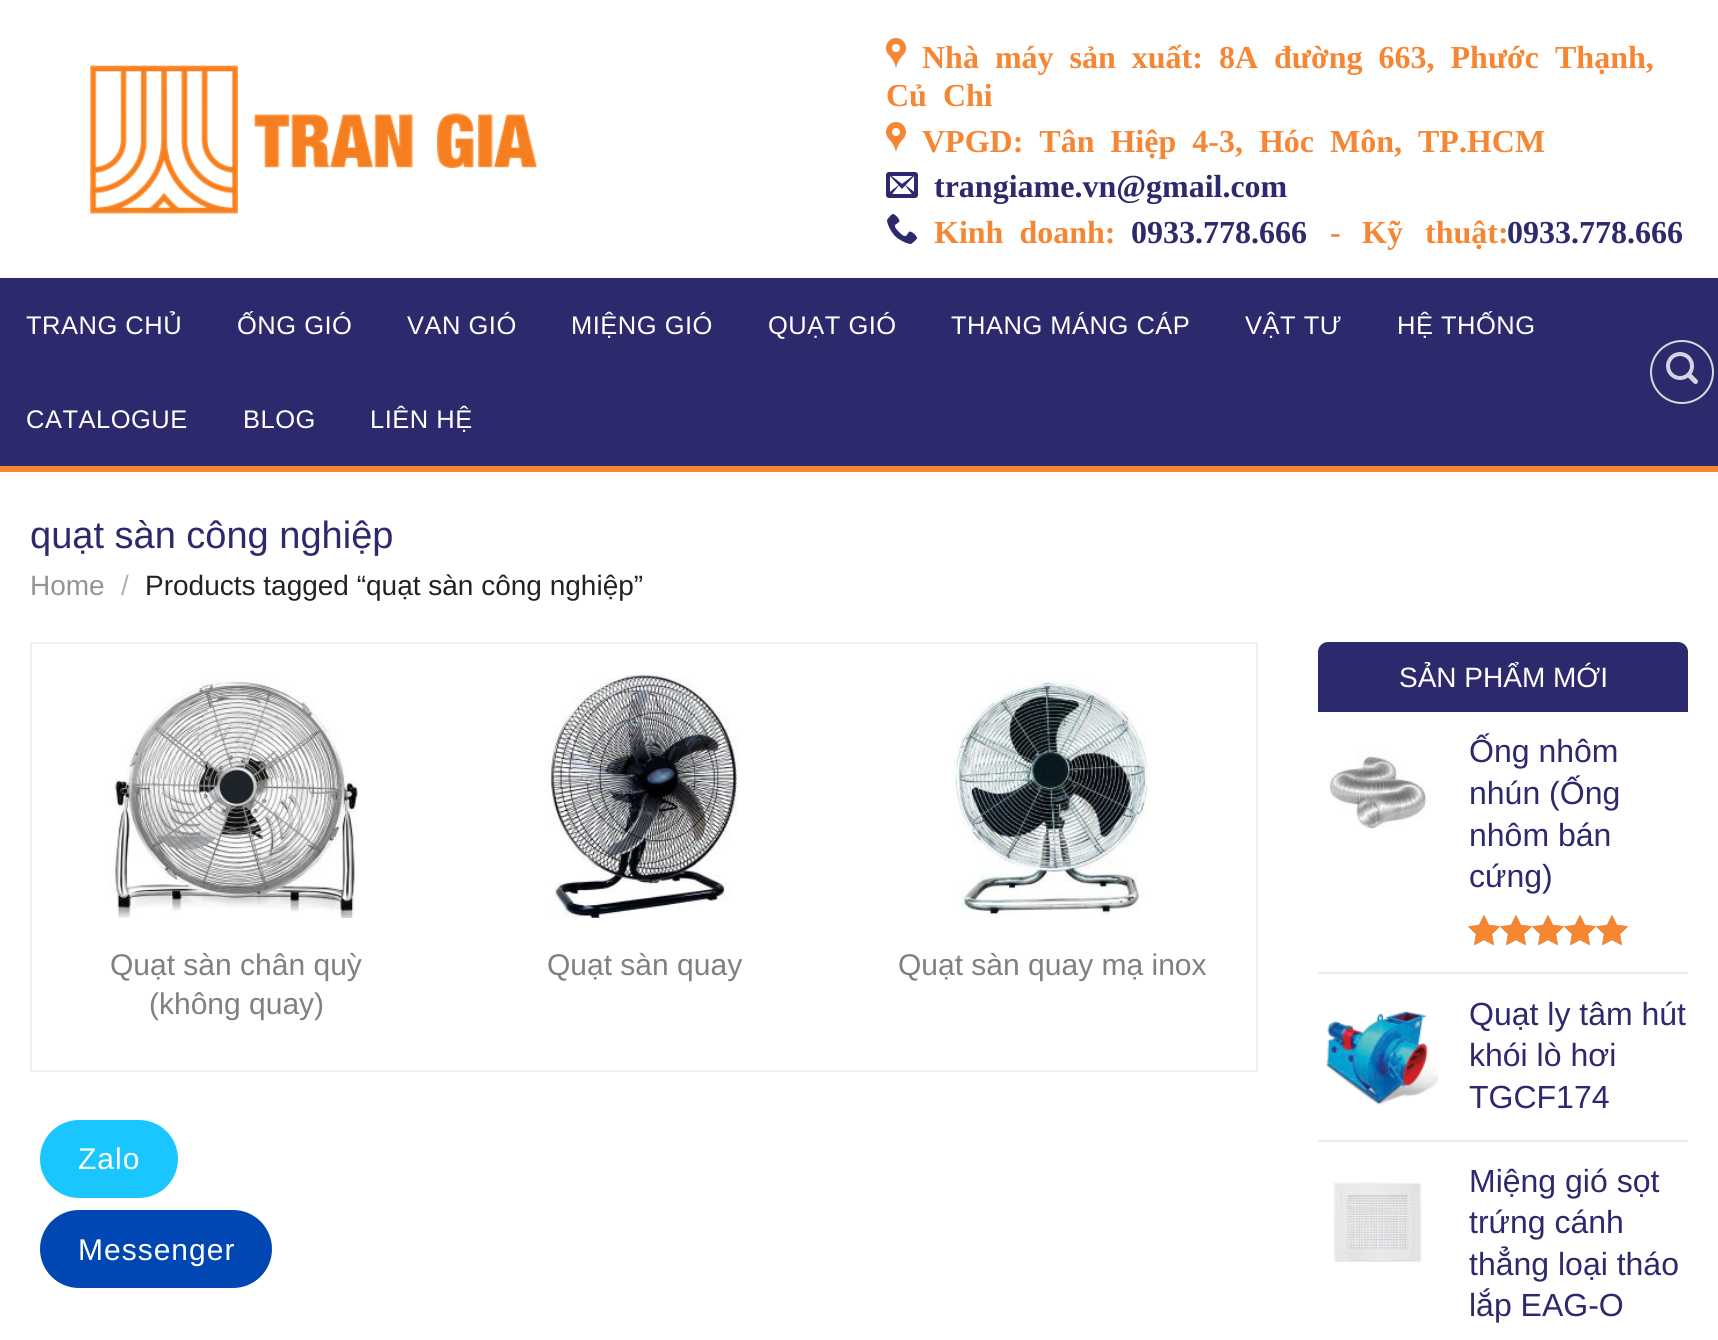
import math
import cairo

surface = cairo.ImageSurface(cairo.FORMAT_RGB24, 1718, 1340)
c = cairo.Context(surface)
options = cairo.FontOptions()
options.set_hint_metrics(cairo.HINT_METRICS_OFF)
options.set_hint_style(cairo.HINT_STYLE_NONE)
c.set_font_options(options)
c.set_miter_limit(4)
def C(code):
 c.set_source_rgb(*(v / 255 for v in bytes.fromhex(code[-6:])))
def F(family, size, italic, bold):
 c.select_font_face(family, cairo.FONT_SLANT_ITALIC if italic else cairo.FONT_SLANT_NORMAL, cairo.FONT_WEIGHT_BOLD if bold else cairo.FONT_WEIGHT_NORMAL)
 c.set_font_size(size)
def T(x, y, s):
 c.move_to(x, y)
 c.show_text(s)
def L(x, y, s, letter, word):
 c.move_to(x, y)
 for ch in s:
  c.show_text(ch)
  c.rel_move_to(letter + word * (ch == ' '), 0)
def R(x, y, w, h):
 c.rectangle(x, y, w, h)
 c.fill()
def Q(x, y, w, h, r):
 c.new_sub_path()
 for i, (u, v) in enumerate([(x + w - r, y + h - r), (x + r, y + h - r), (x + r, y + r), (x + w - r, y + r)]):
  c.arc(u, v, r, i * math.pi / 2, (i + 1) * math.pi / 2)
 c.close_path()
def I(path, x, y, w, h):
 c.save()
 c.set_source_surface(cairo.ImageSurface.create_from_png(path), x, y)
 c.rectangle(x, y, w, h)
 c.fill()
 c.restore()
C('ffffff')
c.paint()
I('1.png',90,65,448,149)
I('2.png',886,38,20,32)
F('Liberation Serif',32,0,1)
C('f58634')
L(922,68,'Nhà máy sản xuất: 8A đường 663, Phước Thạnh,',0,8)
L(886,106,'Củ Chi',0,8)
I('2.png',886,122,20,32)
L(922,152,'VPGD: Tân Hiệp 4-3, Hóc Môn, TP.HCM',0,8)
I('3.png',886,172,32,26)
C('2c2a6d')
T(934,197,'trangiame.vn@gmail.com')
I('4.png',887,214,30,30)
C('f58634')
L(934,243,'Kinh doanh:',0,8)
C('2c2a6d')
T(1131,243,'0933.778.666')
C('f58634')
T(1330,243,'-')
T(1362,243,'Kỹ')
T(1425,243,'thuật:')
C('2c2a6d')
T(1507,243,'0933.778.666')
R(0,278,1718,188)
C('2a2865')
R(30,278,1658,2)
C('f58634')
R(0,466,1718,6)
F('Liberation Sans',25.5,0,0)
C('ffffff')
L(26,334,'TRANG CHỦ',.5,0)
L(237,334,'ỐNG GIÓ',.5,0)
L(407,334,'VAN GIÓ',.5,0)
L(571,334,'MIỆNG GIÓ',.5,0)
L(768,334,'QUẠT GIÓ',.5,0)
L(951,334,'THANG MÁNG CÁP',.5,0)
L(1245,334,'VẬT TƯ',.5,0)
L(1397,334,'HỆ THỐNG',.5,0)
L(26,428,'CATALOGUE',.5,0)
L(243,428,'BLOG',.5,0)
L(370,428,'LIÊN HỆ',.5,0)
c.new_path()
c.arc(1682,372,31,0,2 * math.pi)
C('d9d9d9')
c.stroke()
I('5.png',1666,352,32,32)
F('Liberation Sans',38,0,0)
C('2c2a6d')
T(30,548,'quạt sàn công nghiệp')
F('Liberation Sans',28,0,0)
C('949494')
T(30,595,'Home')
C('b2b2b2')
T(121,595,'/')
C('222222')
T(145,595,'Products tagged “quạt sàn công nghiệp”')
c.rectangle(31,643,1226,428)
C('f0f0f0')
c.stroke()
I('6.png',110,678,249,240)
F('Liberation Sans',30,0,0)
C('808080')
T(110,975,'Quạt sàn chân quỳ')
T(149,1014,'(không quay)')
I('7.png',544,674,195,244)
T(547,975,'Quạt sàn quay')
I('8.png',952,678,196,240)
T(898,975,'Quạt sàn quay mạ inox')
C('2c2a6d')
c.new_path()
c.move_to(1328,642)
c.line_to(1678,642)
c.curve_to(1683.5,642,1688,646.5,1688,652)
c.line_to(1688,712)
c.line_to(1318,712)
c.line_to(1318,652)
c.curve_to(1318,646.5,1322.5,642,1328,642)
c.close_path()
c.fill()
F('Liberation Sans',28,0,0)
C('ffffff')
T(1399,687,'SẢN PHẨM MỚI')
I('9.png',1328,751,103,78)
F('Liberation Sans',32,0,0)
C('2c2a6d')
T(1469,762,'Ống nhôm')
T(1469,804,'nhún (Ống')
T(1469,846,'nhôm bán')
T(1469,887,'cứng)')
I('10.png',1468,915,160,31)
I('11.png',1468,915,160,31)
C('ececec')
R(1318,972,370,2)
I('12.png',1326,1010,112,95)
C('2c2a6d')
T(1469,1025,'Quạt ly tâm hút')
T(1469,1066,'khói lò hơi')
T(1469,1108,'TGCF174')
C('ececec')
R(1318,1140,370,2)
I('13.png',1333,1182,90,82)
C('2c2a6d')
T(1469,1192,'Miệng gió sọt')
T(1469,1233,'trứng cánh')
T(1469,1275,'thẳng loại tháo')
T(1469,1316,'lắp EAG-O')
C('1ac6ff')
Q(40,1120,138,78,39)
c.fill()
F('Liberation Sans',30,0,0)
C('ffffff')
L(78,1169,'Zalo',1,0)
C('0047b3')
Q(40,1210,232,78,39)
c.fill()
C('ffffff')
L(78,1260,'Messenger',1,0)
surface.write_to_png('o.png')
